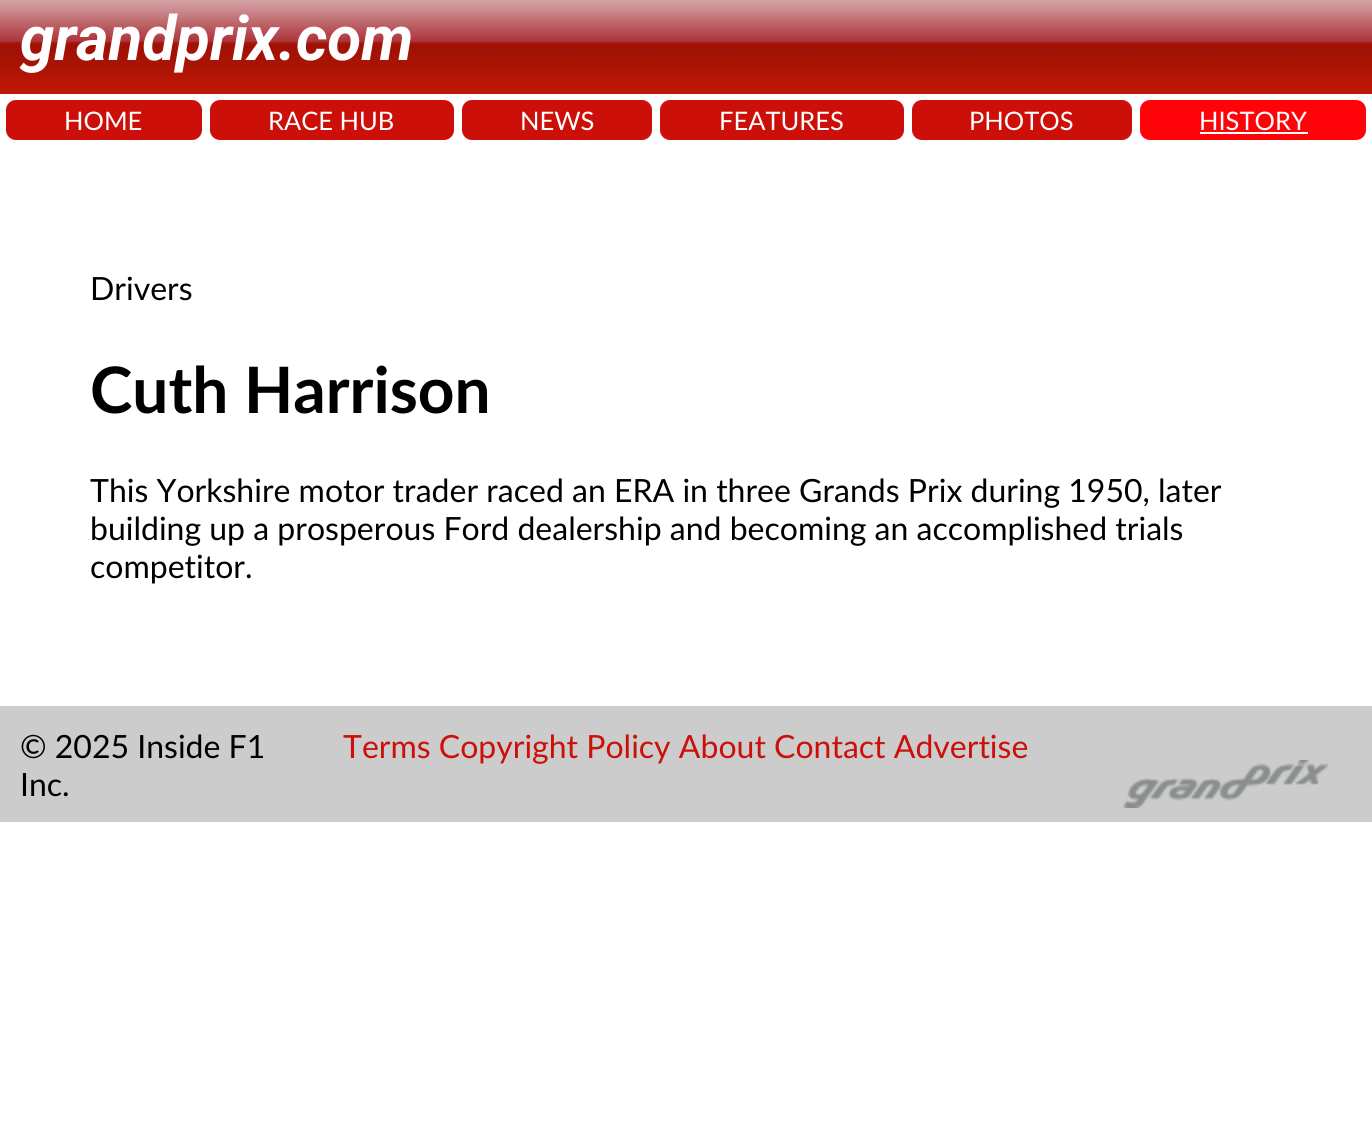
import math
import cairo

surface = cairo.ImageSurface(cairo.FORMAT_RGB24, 1372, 1130)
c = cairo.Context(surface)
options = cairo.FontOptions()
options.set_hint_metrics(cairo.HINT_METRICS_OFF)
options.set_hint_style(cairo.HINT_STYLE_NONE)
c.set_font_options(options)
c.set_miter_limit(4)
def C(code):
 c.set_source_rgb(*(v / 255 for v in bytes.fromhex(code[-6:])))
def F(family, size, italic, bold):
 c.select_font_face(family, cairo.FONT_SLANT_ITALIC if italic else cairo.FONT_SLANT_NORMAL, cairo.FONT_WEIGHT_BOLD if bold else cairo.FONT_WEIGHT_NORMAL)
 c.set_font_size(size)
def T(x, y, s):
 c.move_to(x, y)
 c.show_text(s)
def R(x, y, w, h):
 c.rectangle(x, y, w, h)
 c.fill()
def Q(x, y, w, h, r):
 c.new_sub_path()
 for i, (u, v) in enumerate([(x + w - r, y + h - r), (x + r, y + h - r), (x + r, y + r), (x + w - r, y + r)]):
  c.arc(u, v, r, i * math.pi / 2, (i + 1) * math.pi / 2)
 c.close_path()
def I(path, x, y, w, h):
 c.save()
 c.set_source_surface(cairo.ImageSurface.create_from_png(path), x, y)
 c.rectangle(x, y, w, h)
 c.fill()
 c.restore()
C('ffffff')
c.paint()
I('1.png',0,0,1372,94)
F('Roboto',62,1,1)
C('ffffff')
T(20,60,'grandprix.com')
C('cc0f09')
Q(6,100,196,40,10)
c.fill()
F('Lato',25.5,0,0)
C('ffffff')
T(64,130,'HOME')
C('cc0f09')
Q(210,100,244,40,10)
c.fill()
C('ffffff')
T(268,130,'RACE HUB')
C('cc0f09')
Q(462,100,190,40,10)
c.fill()
C('ffffff')
T(520,130,'NEWS')
C('cc0f09')
Q(660,100,244,40,10)
c.fill()
C('ffffff')
T(719,130,'FEATURES')
C('cc0f09')
Q(912,100,220,40,10)
c.fill()
C('ffffff')
T(969,130,'PHOTOS')
C('ff0309')
Q(1140,100,226,40,10)
c.fill()
C('ffffff')
T(1199,130,'HISTORY')
R(1200,132,108,2)
F('Lato',32,0,0)
C('000000')
T(90,300,'Drivers')
F('Lato',64,0,1)
T(90,413,'Cuth Harrison')
F('Lato',32,0,0)
T(90,502,'This Yorkshire motor trader raced an ERA in three Grands Prix during 1950, later')
T(90,540,'building up a prosperous Ford dealership and becoming an accomplished trials')
T(90,578,'competitor.')
C('cccccc')
R(0,706,1372,116)
C('000000')
T(20,758,'© 2025 Inside F1')
T(20,796,'Inc.')
C('cc0f09')
T(343,758,'Terms Copyright Policy About Contact Advertise')
I('2.png',1122,760,207,48)
surface.write_to_png('o.png')
